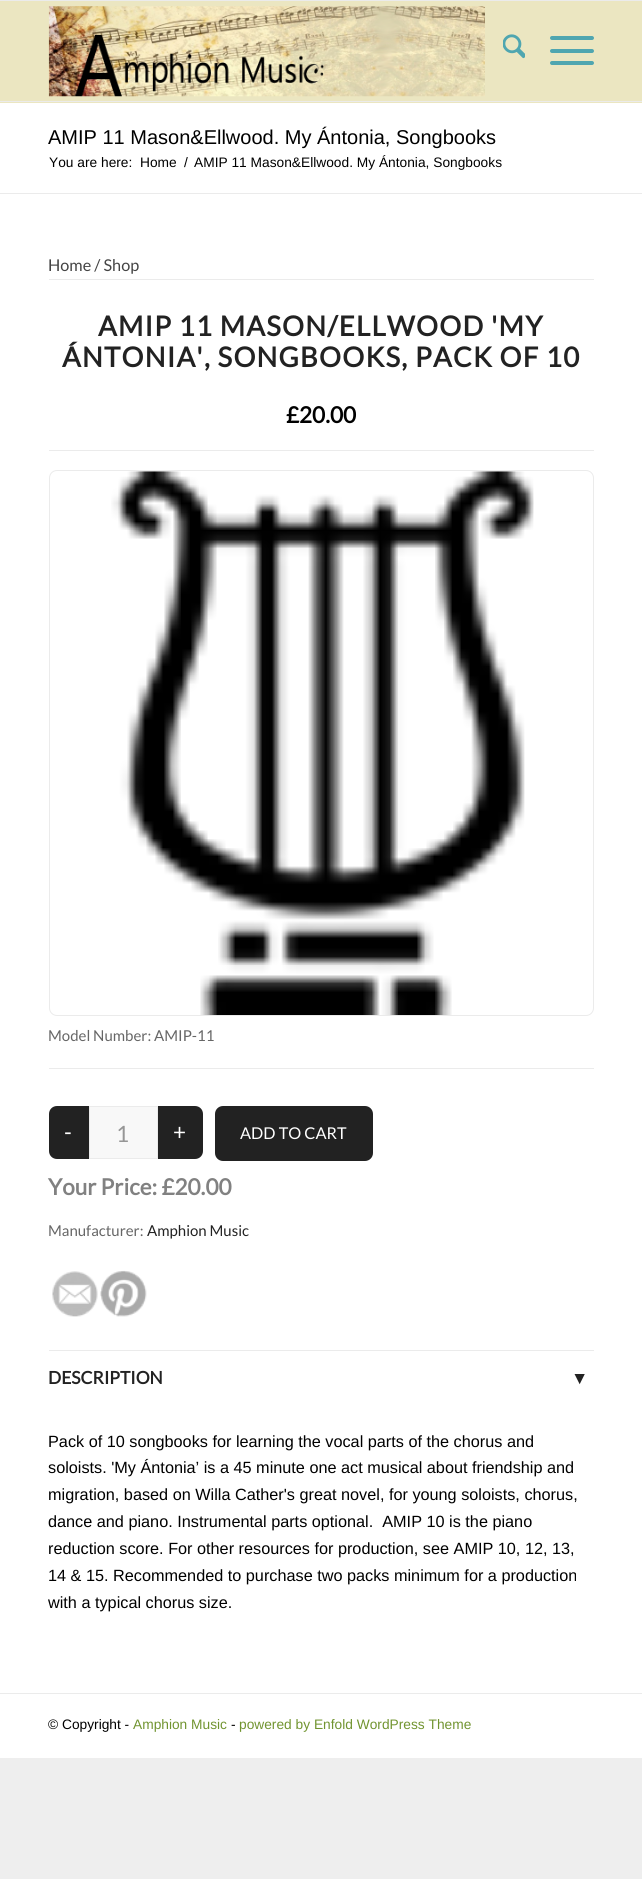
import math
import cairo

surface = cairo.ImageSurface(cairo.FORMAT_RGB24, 642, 1879)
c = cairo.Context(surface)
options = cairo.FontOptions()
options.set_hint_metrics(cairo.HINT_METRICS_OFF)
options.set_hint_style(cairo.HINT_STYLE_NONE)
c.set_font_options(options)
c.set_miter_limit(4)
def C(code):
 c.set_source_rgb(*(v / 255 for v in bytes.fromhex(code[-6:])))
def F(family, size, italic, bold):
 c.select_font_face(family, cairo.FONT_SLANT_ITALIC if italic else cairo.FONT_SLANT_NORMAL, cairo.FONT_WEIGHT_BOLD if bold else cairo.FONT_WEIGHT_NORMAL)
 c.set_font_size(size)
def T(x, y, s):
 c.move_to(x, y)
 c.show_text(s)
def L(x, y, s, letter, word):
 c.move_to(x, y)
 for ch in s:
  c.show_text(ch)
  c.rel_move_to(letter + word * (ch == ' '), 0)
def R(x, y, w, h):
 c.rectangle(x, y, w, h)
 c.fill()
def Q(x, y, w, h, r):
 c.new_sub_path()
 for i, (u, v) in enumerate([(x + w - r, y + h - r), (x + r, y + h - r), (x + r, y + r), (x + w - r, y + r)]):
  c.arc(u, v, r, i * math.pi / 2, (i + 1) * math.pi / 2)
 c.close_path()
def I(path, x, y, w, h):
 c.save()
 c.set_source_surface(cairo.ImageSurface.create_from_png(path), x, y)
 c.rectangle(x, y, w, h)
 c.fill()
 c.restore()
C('eeeeee')
c.paint()
C('ebebeb')
R(0,0,642,1)
C('ebe6c1')
R(0,1,642,102)
C('ebebeb')
R(0,101,642,1)
I('1.png',48,6,437,91)
I('2.png',503,34,22,25)
C('4fa6b0')
Q(550,49,44,4,2)
c.fill()
Q(550,36,44,4,2)
c.fill()
Q(550,61,44,4,2)
c.fill()
C('ffffff')
R(0,103,642,90)
F('Liberation Sans',20,0,0)
C('000000')
T(48,144,'AMIP 11 Mason&Ellwood. My Ántonia, Songbooks')
F('Liberation Sans',13.75,0,0)
T(49,167,'You are here:')
T(140,167,'Home')
T(184,167,'/')
T(194,167,'AMIP 11 Mason&Ellwood. My Ántonia, Songbooks')
C('ffffff')
R(0,194,642,1499)
C('ebebeb')
R(0,193,642,1)
F('Lato',16.25,0,0)
C('444444')
T(48,271,'Home / Shop')
C('ebebeb')
R(49,279,545,1)
R(49,450,545,1)
F('Lato',27.5,0,1)
C('222222')
L(98,336,'AMIP 11 MASON/ELLWOOD \'MY',1.25,0)
L(62,367,'ÁNTONIA\', SONGBOOKS, PACK OF 10',1.25,0)
F('Lato',22.5,0,1)
C('000000')
T(286,423,'£20.00')
Q(49.5,470.5,544,545,7.5)
C('ebebeb')
c.set_line_width(1)
c.stroke()
I('3.png',111,471,423,544)
F('Lato',15,0,0)
C('666666')
T(48,1041,'Model Number: AMIP-11')
C('ebebeb')
R(49,1068,545,1)
C('222222')
c.new_path()
c.move_to(57,1106)
c.line_to(89,1106)
c.line_to(89,1159)
c.line_to(57,1159)
c.curve_to(52.5,1159,49,1155.5,49,1151)
c.line_to(49,1114)
c.curve_to(49,1109.5,52.5,1106,57,1106)
c.close_path()
c.fill()
F('Lato',22.5,0,0)
C('ffffff')
T(64,1140,'-')
C('f8f8f8')
c.rectangle(89.5,1106.5,68,52)
c.fill_preserve()
C('ebebeb')
c.stroke()
C('969696')
T(116,1142,'1')
C('222222')
c.new_path()
c.move_to(158,1106)
c.line_to(195,1106)
c.curve_to(199.5,1106,203,1109.5,203,1114)
c.line_to(203,1151)
c.curve_to(203,1155.5,199.5,1159,195,1159)
c.line_to(158,1159)
c.close_path()
c.fill()
C('ffffff')
T(173,1140,'+')
C('222222')
Q(215,1106,158,55,8)
c.fill()
F('Lato',16.25,0,0)
C('ffffff')
T(240,1139,'ADD TO CART')
F('Lato',22.5,0,1)
C('818181')
T(48,1195,'Your Price: £20.00')
F('Lato',15,0,0)
C('666666')
T(48,1236,'Manufacturer:')
C('222222')
T(147,1236,'Amphion Music')
I('4.png',52,1271,46,46)
I('5.png',100,1270,47,47)
C('ebebeb')
R(49,1350,545,1)
F('Lato',17.5,0,1)
C('222222')
T(48,1384,'DESCRIPTION')
F('Liberation Sans',17.5,0,1)
T(571,1384,'▼')
F('Liberation Sans',16.25,0,0)
C('000000')
T(48,1447,'Pack of 10 songbooks for learning the vocal parts of the chorus and')
T(48,1473,'soloists. \'My Ántonia’ is a 45 minute one act musical about friendship and')
T(48,1500,'migration, based on Willa Cather\'s great novel, for young soloists, chorus,')
T(48,1527,'dance and piano. Instrumental parts optional.  AMIP 10 is the piano')
T(48,1554,'reduction score. For other resources for production, see AMIP 10, 12, 13,')
T(48,1581,'14 & 15. Recommended to purchase two packs minimum for a production')
T(48,1608,'with a typical chorus size.')
C('ffffff')
R(0,1694,642,64)
C('ebebeb')
R(0,1693,642,1)
F('Liberation Sans',13.75,0,0)
C('000000')
T(48,1729,'© Copyright -')
C('719430')
T(133,1729,'Amphion Music')
C('000000')
T(231,1729,'-')
C('719430')
T(239,1729,'powered by Enfold WordPress Theme')
surface.write_to_png('o.png')
